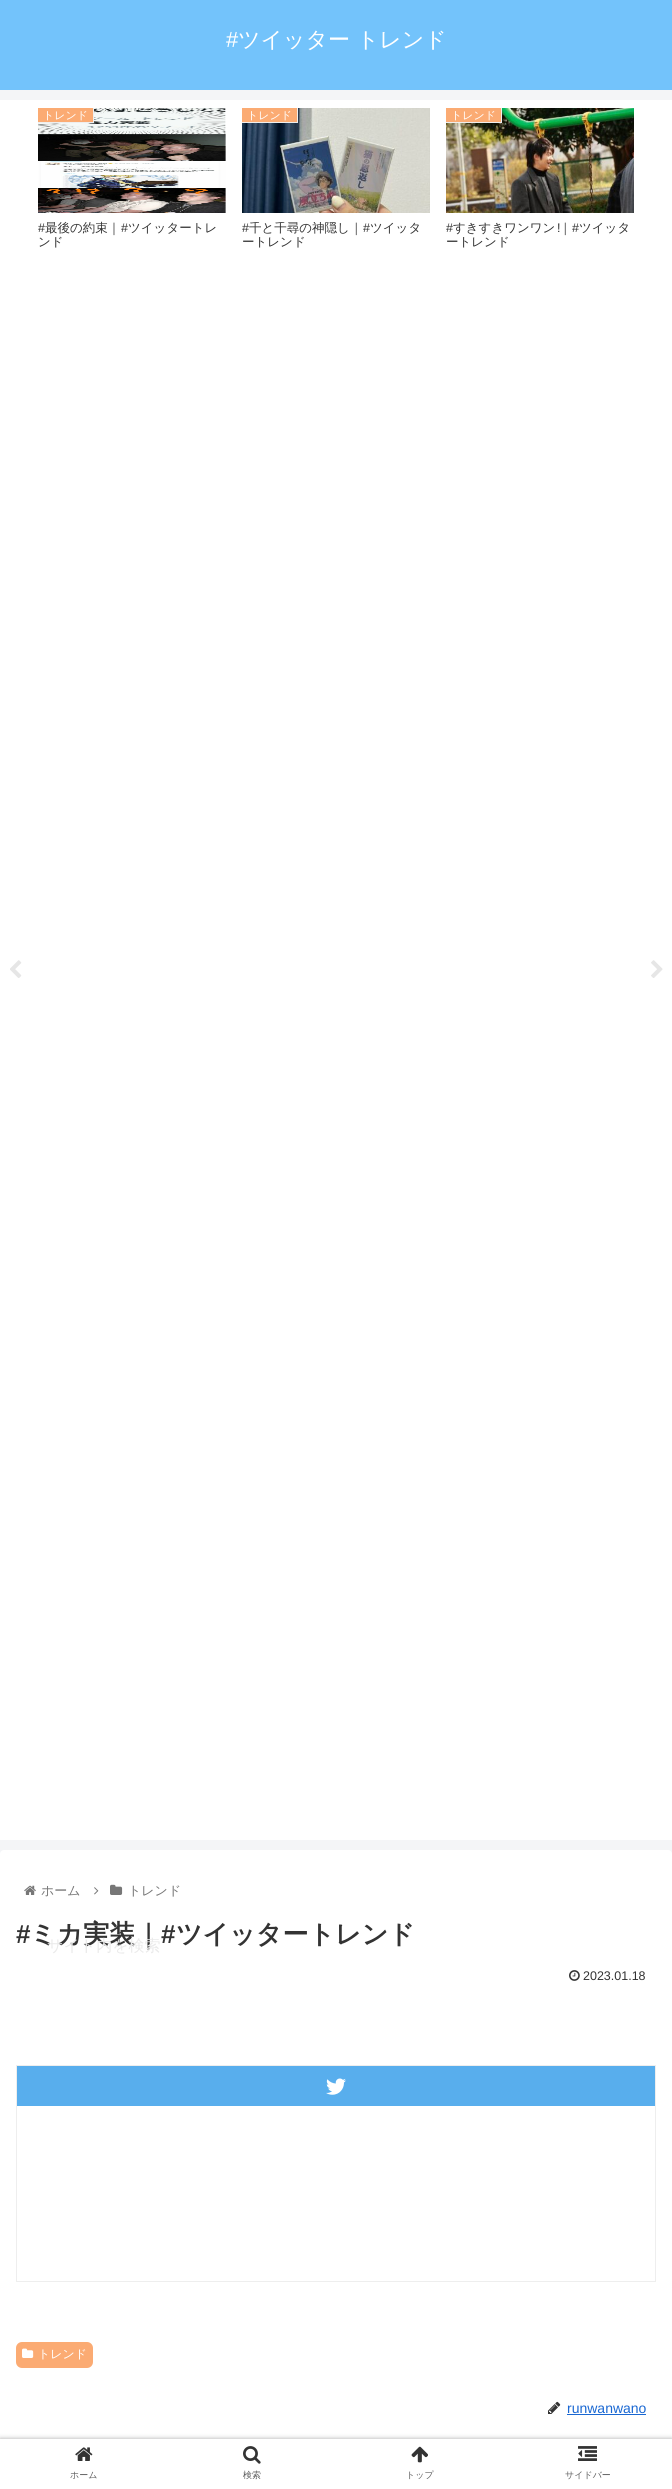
import math
import cairo

surface = cairo.ImageSurface(cairo.FORMAT_RGB24, 672, 2489)
c = cairo.Context(surface)
options = cairo.FontOptions()
options.set_hint_metrics(cairo.HINT_METRICS_OFF)
options.set_hint_style(cairo.HINT_STYLE_NONE)
c.set_font_options(options)
c.set_miter_limit(4)
def C(code):
 c.set_source_rgb(*(v / 255 for v in bytes.fromhex(code[-6:])))
def F(family, size, italic, bold):
 c.select_font_face(family, cairo.FONT_SLANT_ITALIC if italic else cairo.FONT_SLANT_NORMAL, cairo.FONT_WEIGHT_BOLD if bold else cairo.FONT_WEIGHT_NORMAL)
 c.set_font_size(size)
def T(x, y, s):
 c.move_to(x, y)
 c.show_text(s)
def R(x, y, w, h):
 c.rectangle(x, y, w, h)
 c.fill()
def Q(x, y, w, h, r):
 c.new_sub_path()
 for i, (u, v) in enumerate([(x + w - r, y + h - r), (x + r, y + h - r), (x + r, y + r), (x + w - r, y + r)]):
  c.arc(u, v, r, i * math.pi / 2, (i + 1) * math.pi / 2)
 c.close_path()
def S(x, y, w, h, r, blur, alpha):
 c.push_group_with_content(cairo.CONTENT_ALPHA)
 c.set_operator(cairo.OPERATOR_SOURCE)
 for i in range(15, -16, -2):
  e = blur * i / 6
  if min(w, h) + 2 * e > 0:
   c.set_source_rgba(0, 0, 0, alpha * math.erfc((i - 1) / 8.5) / 2)
   Q(x - e, y - e, w + 2 * e, h + 2 * e, max(0, min(r + e + blur * .6, min(w, h) / 2 + e)))
   c.fill()
 c.mask(c.pop_group())
def I(path, x, y, w, h):
 c.save()
 c.set_source_surface(cairo.ImageSurface.create_from_png(path), x, y)
 c.rectangle(x, y, w, h)
 c.fill()
 c.restore()
C('f4f5f7')
c.paint()
C('73c3fb')
R(0,0,672,90)
F('Liberation Sans',22,0,0)
C('ffffff')
T(226,47,'#')
F('WenQuanYi Zen Hei Medium',22,0,0)
T(238,47,'ツイッター トレンド')
R(0,100,672,1740)
I('1.png',38,108,188,105)
C('fbab73')
R(38,108,55,14)
C('eeeeee')
R(93,108,1,15)
R(38,122,56,1)
F('WenQuanYi Zen Hei Medium',11,0,0)
C('ffffff')
T(43,119,'トレンド')
F('Liberation Sans',12.5,0,0)
C('333333')
T(38,232,'#')
F('WenQuanYi Zen Hei Medium',12.5,0,0)
T(45,232,'最後の約束｜')
F('Liberation Sans',12.5,0,0)
T(121,232,'#')
F('WenQuanYi Zen Hei Medium',12.5,0,0)
T(128,232,'ツイッタートレ')
T(38,246,'ンド')
I('2.png',242,108,188,105)
C('fbab73')
R(242,108,55,14)
C('eeeeee')
R(297,108,1,15)
R(242,122,56,1)
F('WenQuanYi Zen Hei Medium',11,0,0)
C('ffffff')
T(247,119,'トレンド')
F('Liberation Sans',12.5,0,0)
C('333333')
T(242,232,'#')
c.save()
c.rectangle(242,222,188,28)
c.clip()
F('WenQuanYi Zen Hei Medium',12.5,0,0)
T(249,232,'千と千尋の神隠し｜')
c.restore()
T(363,232,'#')
F('WenQuanYi Zen Hei Medium',12.5,0,0)
T(370,232,'ツイッタ')
T(242,246,'ートレンド')
I('3.png',446,108,188,105)
C('fbab73')
R(446,108,55,14)
C('eeeeee')
R(501,108,1,15)
R(446,122,56,1)
F('WenQuanYi Zen Hei Medium',11,0,0)
C('ffffff')
T(451,119,'トレンド')
F('Liberation Sans',12.5,0,0)
C('333333')
T(446,232,'#')
F('WenQuanYi Zen Hei Medium',12.5,0,0)
T(453,232,'すきすきワンワン ｜')
T(579,232,'ツイッタ')
F('Liberation Sans',12.5,0,0)
T(557,232,'!')
T(572,232,'#')
F('WenQuanYi Zen Hei Medium',12.5,0,0)
T(446,246,'ートレンド')
I('4.png',10,960,12,18)
I('5.png',651,960,12,18)
C('ffffff')
Q(0,1850,672,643,4)
c.fill()
I('6.png',24,1885,12,10)
F('WenQuanYi Zen Hei Medium',13,0,0)
C('777777')
T(41,1895,'ホーム')
I('7.png',94,1887,5,8)
I('8.png',110,1884,13,11)
T(128,1895,'トレンド')
F('Liberation Sans',26,0,1)
C('333333')
T(16,1943,'#')
F('WenQuanYi Zen Hei',26,0,1)
T(30,1943,'ミカ実装｜')
F('Liberation Sans',26,0,1)
T(161,1943,'#')
F('WenQuanYi Zen Hei',26,0,1)
T(176,1943,'ツイッタートレンド')
I('9.png',569,1970,11,11)
F('Liberation Sans',12.5,0,0)
T(583,1980,'2023.01.18')
c.rectangle(16.5,2065.5,639,216)
C('eeeeee')
c.set_line_width(1)
c.stroke()
C('58aeed')
R(17,2066,638,40)
I('10.png',326,2078,20,17)
C('fbab73')
Q(16,2342,77,26,6)
c.fill()
I('11.png',22,2348,12,10)
F('WenQuanYi Zen Hei Medium',12,0,0)
C('ffffff')
T(38,2358,'トレンド')
I('12.png',548,2401,13,13)
F('Liberation Sans',14,0,0)
C('1967d2')
T(567,2413,'runwanwano')
R(567,2414,79,1)
C('a9a9a9')
S(0,2439,672,50,0,2.5,1)
C('ffffff')
R(0,2439,672,50)
F('WenQuanYi Zen Hei Medium',16,0,0)
C('eaeaea')
T(47,1951,'サイト内を検索')
I('13.png',243,2446,18,18)
F('WenQuanYi Zen Hei Medium',9,0,0)
C('5c5c5c')
T(243,2478,'検索')
I('14.png',411,2446,17,17)
T(406,2478,'トップ')
I('15.png',75,2447,18,14)
T(70,2478,'ホーム')
I('16.png',578,2446,19,15)
T(565,2478,'サイドバー')
surface.write_to_png('o.png')
